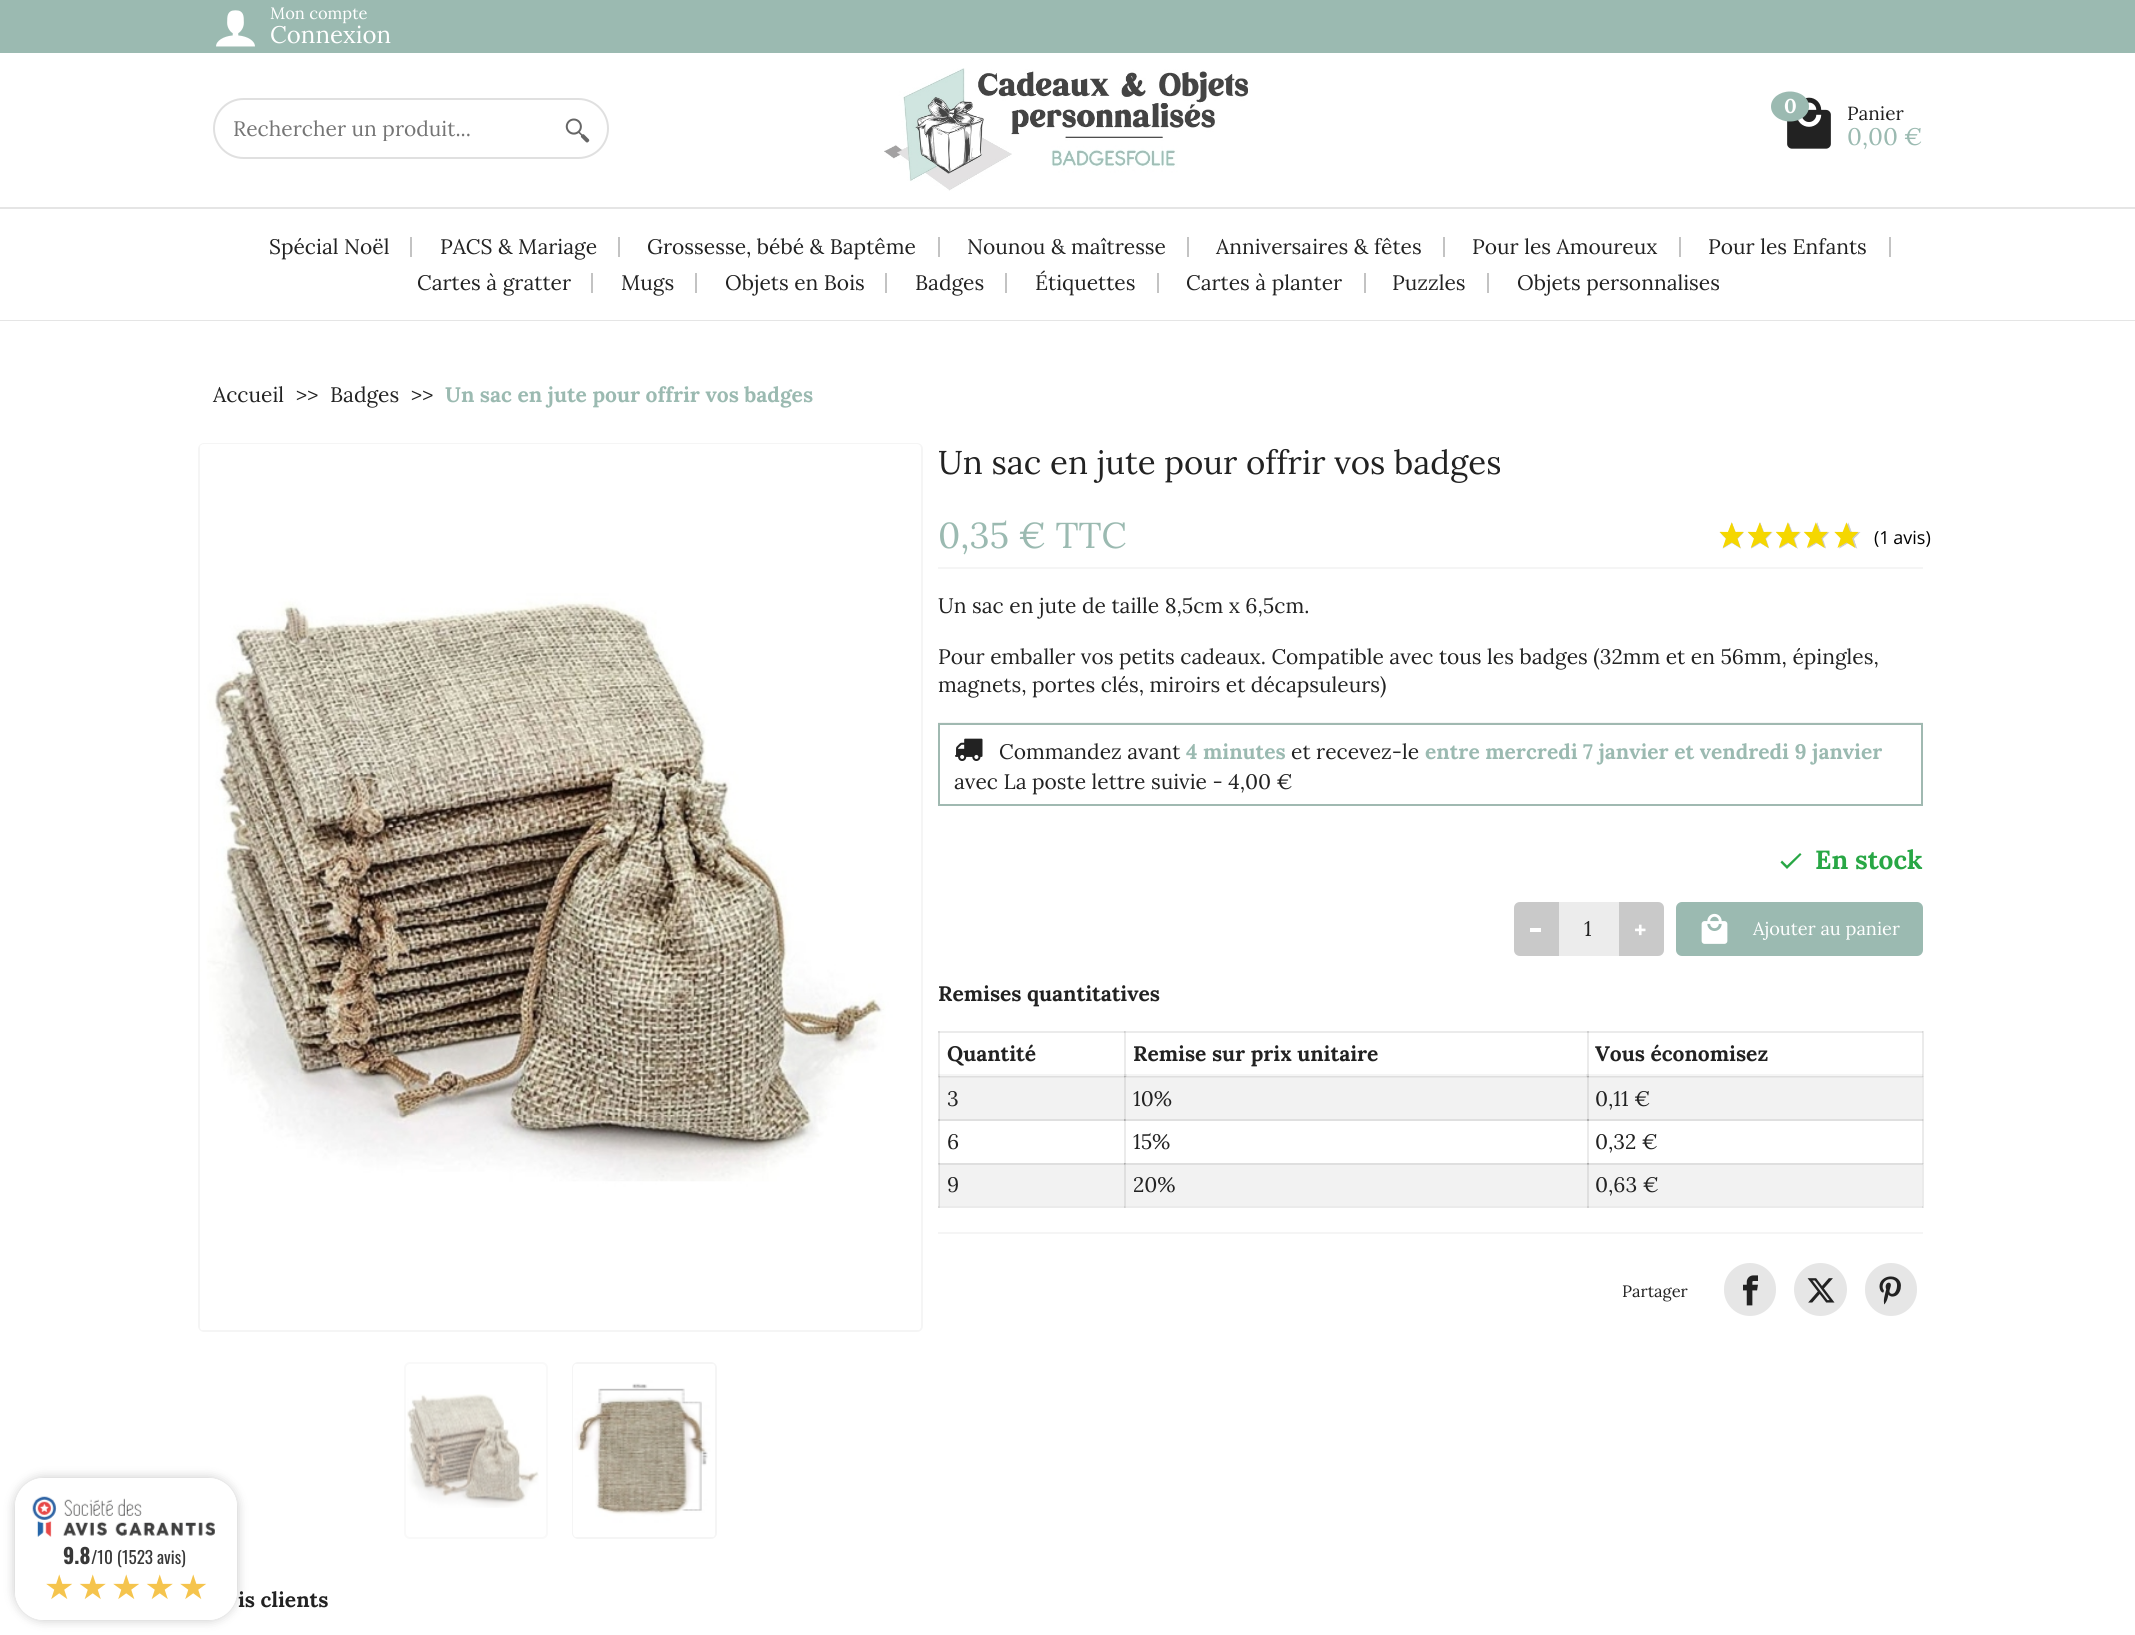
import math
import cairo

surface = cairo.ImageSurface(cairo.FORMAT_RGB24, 2135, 1635)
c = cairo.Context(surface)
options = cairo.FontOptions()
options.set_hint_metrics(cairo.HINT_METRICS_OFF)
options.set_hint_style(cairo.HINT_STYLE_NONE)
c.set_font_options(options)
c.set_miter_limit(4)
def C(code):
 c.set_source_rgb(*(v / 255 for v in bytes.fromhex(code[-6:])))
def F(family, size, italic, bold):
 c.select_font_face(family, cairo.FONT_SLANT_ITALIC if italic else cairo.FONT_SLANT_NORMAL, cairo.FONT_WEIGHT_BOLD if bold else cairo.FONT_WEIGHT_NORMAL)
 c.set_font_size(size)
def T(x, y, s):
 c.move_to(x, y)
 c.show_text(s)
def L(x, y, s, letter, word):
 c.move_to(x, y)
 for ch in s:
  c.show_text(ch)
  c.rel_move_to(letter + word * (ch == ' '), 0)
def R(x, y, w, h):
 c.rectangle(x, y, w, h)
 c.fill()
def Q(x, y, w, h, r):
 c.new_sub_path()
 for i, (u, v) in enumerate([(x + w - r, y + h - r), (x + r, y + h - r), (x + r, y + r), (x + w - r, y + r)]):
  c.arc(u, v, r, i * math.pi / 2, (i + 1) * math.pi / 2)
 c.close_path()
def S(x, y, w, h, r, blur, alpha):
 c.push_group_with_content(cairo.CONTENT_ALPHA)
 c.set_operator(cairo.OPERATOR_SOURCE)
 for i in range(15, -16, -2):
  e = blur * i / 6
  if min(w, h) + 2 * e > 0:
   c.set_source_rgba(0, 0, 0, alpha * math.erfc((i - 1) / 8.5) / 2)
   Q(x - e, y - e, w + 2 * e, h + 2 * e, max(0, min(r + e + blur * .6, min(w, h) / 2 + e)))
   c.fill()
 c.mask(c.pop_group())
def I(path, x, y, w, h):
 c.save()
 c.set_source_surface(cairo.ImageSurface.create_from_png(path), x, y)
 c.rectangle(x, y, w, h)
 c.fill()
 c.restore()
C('ffffff')
c.paint()
C('9bbab1')
R(0,0,2135,53)
I('1.png',216,10,39,37)
F('Lora',16.5,0,0)
C('ffffff')
T(270,19,'Mon compte')
F('Lora',24,0,0)
T(270,43,'Connexion')
I('2.png',884,68,364,123)
Q(214,99,394,59,29.5)
C('e0e0e0')
c.stroke()
c.save()
c.rectangle(233,114,297,27)
c.clip()
F('Lora',21,0,0)
C('757575')
T(233,136,'Rechercher un produit...')
c.restore()
I('3.png',565,118,25,25)
I('4.png',1787,97,44,52)
C('9bbab1')
c.new_path()
c.move_to(1790,91.5)
c.curve_to(1800.5,91.5,1809,98,1809,106.5)
c.curve_to(1809,115,1800.5,121.5,1790,121.5)
c.curve_to(1779.5,121.5,1771,115,1771,106.5)
c.curve_to(1771,98,1779.5,91.5,1790,91.5)
c.close_path()
c.fill()
F('Lora',20,0,1)
C('ffffff')
T(1784,113,'0')
F('Lora',19,0,0)
C('222222')
T(1847,120,'Panier')
F('Lora',24,0,0)
C('9bbab1')
T(1847,145,'0,00 €')
C('e5e5e5')
R(0,207,2135,2)
R(0,320,2135,1)
F('Lora',21,0,0)
C('222222')
T(269,254,'Spécial Noël')
C('c3c3c3')
R(410,237,2,20)
C('222222')
T(440,254,'PACS & Mariage')
C('c3c3c3')
R(618,237,2,20)
C('222222')
T(647,254,'Grossesse, bébé & Baptême')
C('c3c3c3')
R(938,237,2,20)
C('222222')
T(967,254,'Nounou & maîtresse')
C('c3c3c3')
R(1187,237,2,20)
C('222222')
T(1216,254,'Anniversaires & fêtes')
C('c3c3c3')
R(1443,237,2,20)
C('222222')
T(1472,254,'Pour les Amoureux')
C('c3c3c3')
R(1679,237,2,20)
C('222222')
T(1708,254,'Pour les Enfants')
C('c3c3c3')
R(1889,237,2,20)
C('222222')
T(417,290,'Cartes à gratter')
C('c3c3c3')
R(591,273,2,20)
C('222222')
T(621,290,'Mugs')
C('c3c3c3')
R(695,273,2,20)
C('222222')
T(725,290,'Objets en Bois')
C('c3c3c3')
R(885,273,2,20)
C('222222')
T(915,290,'Badges')
C('c3c3c3')
R(1005,273,2,20)
C('222222')
T(1035,290,'Étiquettes')
C('c3c3c3')
R(1157,273,2,20)
C('222222')
T(1186,290,'Cartes à planter')
C('c3c3c3')
R(1364,273,2,20)
C('222222')
T(1392,290,'Puzzles')
C('c3c3c3')
R(1487,273,2,20)
C('222222')
T(1517,290,'Objets personnalises')
c.save()
c.set_fill_rule(cairo.FILL_RULE_EVEN_ODD)
c.new_path()
c.move_to(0,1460)
c.line_to(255,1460)
c.line_to(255,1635)
c.line_to(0,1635)
c.close_path()
c.move_to(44,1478)
c.line_to(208,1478)
c.curve_to(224,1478,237,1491,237,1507)
c.line_to(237,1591)
c.curve_to(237,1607,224,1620,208,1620)
c.line_to(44,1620)
c.curve_to(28,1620,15,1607,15,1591)
c.line_to(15,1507)
c.curve_to(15,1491,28,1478,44,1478)
c.close_path()
c.clip()
C('000000')
S(15,1478,222,142,29,5.5,.23)
c.restore()
c.set_source_rgba(1,1,1,0.9)
Q(15,1478,222,142,29)
c.fill()
I('5.png',32,1496,183,41)
F('Oswald',21,0,1)
C('383838')
T(63,1564,'9.8')
F('Oswald',17.25,0,0)
T(91,1564,'/10 (1523 avis)')
F('DejaVu Sans',34,0,0)
C('f5c44d')
L(44,1599,'★★★★★',3,0)
C('f5f5f5')
R(938,1074,985,2)
C('ebebeb')
R(1124,1074,3,2)
R(1586,1074,3,2)
R(1124,1031,2,46)
C('d9d9d9')
R(1124,1074,2,3)
C('ebebeb')
R(1587,1031,2,46)
C('d9d9d9')
R(1587,1074,2,3)
C('ebebeb')
R(1124,1119,2,45)
R(1587,1119,2,45)
R(938,1031,2,46)
C('e2e2e2')
R(938,1074,2,3)
C('ebebeb')
R(938,1076,1,45)
C('e2e2e2')
R(938,1077,2,1)
C('d0d0d0')
R(938,1076,2,1)
C('ebebeb')
R(938,1119,2,45)
C('d0d0d0')
R(938,1119,2,2)
C('ebebeb')
R(938,1163,1,45)
C('d9d9d9')
R(938,1164,2,1)
C('d0d0d0')
R(938,1163,2,1)
C('ebebeb')
R(938,1206,985,2)
C('d9d9d9')
R(1124,1206,2,2)
C('d0d0d0')
R(1124,1206,1,2)
R(1587,1206,2,2)
C('d9d9d9')
R(938,1206,2,2)
C('ebebeb')
R(1922,1031,2,46)
C('e2e2e2')
R(1922,1074,1,3)
C('ebebeb')
R(1922,1076,2,132)
C('e2e2e2')
R(1922,1076,2,1)
R(1922,1076,1,2)
C('d0d0d0')
R(1922,1076,1,1)
C('e2e2e2')
R(1922,1119,2,2)
C('d0d0d0')
R(1922,1119,1,2)
C('e2e2e2')
R(1922,1163,2,1)
C('d9d9d9')
R(1922,1163,1,2)
C('d0d0d0')
R(1922,1163,1,1)
C('d9d9d9')
R(1922,1206,1,2)
F('Lora',21,0,0)
C('222222')
T(213,402,'Accueil')
T(296,402,'>>')
T(330,402,'Badges')
T(411,402,'>>')
F('Lora',21,0,1)
C('9bbab1')
T(445,402,'Un sac en jute pour offrir vos badges')
Q(199,444,723,887,5)
C('f5f5f5')
c.stroke()
I('6.png',200,444,721,886)
Q(405,1363,142,175,5)
C('f9f9f9')
c.stroke()
I('7.png',407,1394,132,114)
Q(573,1363,143,175,5)
C('f5f5f5')
c.stroke()
I('8.png',573,1364,142,173)
F('Lora',33,0,0)
C('222222')
T(938,474,'Un sac en jute pour offrir vos badges')
F('Lora',36,0,0)
C('9bbab1')
T(938,548,'0,35 € TTC')
I('9.png',1719,522,142,27)
I('10.png',1719,522,140,26)
F('Open Sans',18,0,0)
C('000000')
L(1874,544,'(1 avis)',0,-1)
C('f5f5f5')
R(938,567,985,2)
R(938,722,985,1)
F('Lora',21,0,0)
C('222222')
T(938,613,'Un sac en jute de taille 8,5cm x 6,5cm.')
T(938,664,'Pour emballer vos petits cadeaux. Compatible avec tous les badges (32mm et en 56mm, épingles,')
T(938,692,'magnets, portes clés, miroirs et décapsuleurs)')
c.rectangle(939,724,983,81)
C('a0b9b1')
c.stroke()
I('11.png',955,738,28,23)
C('222222')
T(999,759,'Commandez avant')
F('Lora',21,0,1)
C('9bbab1')
T(1186,759,'4 minutes')
F('Lora',21,0,0)
C('222222')
T(1291,759,'et recevez-le')
F('Lora',21,0,1)
C('9bbab1')
T(1425,759,'entre mercredi 7 janvier et vendredi 9 janvier')
F('Lora',21,0,0)
C('222222')
T(954,789,'avec La poste lettre suivie - 4,00 €')
C('28a745')
c.new_path()
c.move_to(1787,865.5)
c.line_to(1800,853)
c.line_to(1801.5,854.5)
c.line_to(1787,869)
c.line_to(1780.5,862.5)
c.line_to(1782,860.5)
c.close_path()
c.fill()
F('Lora',26.25,0,1)
T(1815,869,'En stock')
C('ececec')
Q(1514,902,150,54,6)
c.fill()
c.set_source_rgba(0,0,0,0.15)
c.new_path()
c.move_to(1520,902)
c.line_to(1559,902)
c.line_to(1559,956)
c.line_to(1520,956)
c.curve_to(1516.5,956,1514,953.5,1514,950)
c.line_to(1514,908)
c.curve_to(1514,904.5,1516.5,902,1520,902)
c.close_path()
c.fill()
C('ffffff')
R(1530,928,11,4)
c.set_source_rgba(0,0,0,0.15)
c.new_path()
c.move_to(1619,902)
c.line_to(1658,902)
c.curve_to(1661.5,902,1664,904.5,1664,908)
c.line_to(1664,950)
c.curve_to(1664,953.5,1661.5,956,1658,956)
c.line_to(1619,956)
c.close_path()
c.fill()
I('12.png',1635,924,11,12)
F('Lora',21,0,0)
C('222222')
T(1584,936,'1')
C('9bbab1')
Q(1676,902,247,54,6)
c.fill()
I('13.png',1701,913,27,31)
F('Lora',18.25,0,0)
C('ffffff')
T(1753,935,'Ajouter au panier')
C('f5f5f5')
R(938,1232,985,2)
F('Lora',21,0,1)
C('222222')
T(938,1001,'Remises quantitatives')
C('ebebeb')
R(938,1031,985,2)
C('d9d9d9')
R(1124,1031,2,2)
C('d0d0d0')
R(1124,1031,1,2)
R(1587,1031,2,2)
C('d9d9d9')
R(938,1031,2,2)
R(1922,1031,1,2)
C('222222')
T(947,1061,'Quantité')
T(1133,1061,'Remise sur prix unitaire')
T(1595,1061,'Vous économisez')
C('f2f2f2')
R(940,1078,982,41)
C('e8e8e8')
R(939,1077,186,1)
C('dfdfdf')
R(939,1076,186,1)
R(1124,1076,2,45)
C('e8e8e8')
R(1124,1077,465,1)
C('dfdfdf')
R(1124,1076,465,1)
C('d6d6d6')
R(1124,1076,3,1)
R(1586,1076,3,1)
R(1124,1077,2,1)
C('b5b5b5')
R(1124,1076,2,1)
C('cdcdcd')
R(1124,1076,1,2)
C('aeaeae')
R(1124,1076,1,1)
C('dfdfdf')
R(1587,1076,2,45)
C('e8e8e8')
R(1587,1077,335,1)
C('dfdfdf')
R(1587,1076,335,1)
C('cdcdcd')
R(1587,1077,2,1)
C('aeaeae')
R(1587,1076,2,1)
C('dfdfdf')
R(939,1119,983,2)
C('bdbdbd')
R(1124,1119,2,2)
C('aeaeae')
R(1124,1119,1,2)
R(1587,1119,2,2)
C('dfdfdf')
R(939,1076,1,45)
C('d6d6d6')
R(939,1076,1,2)
C('c5c5c5')
R(939,1076,1,1)
R(939,1119,1,2)
F('Lora',21,0,0)
C('222222')
T(947,1106,'3')
T(1133,1106,'10%')
T(1595,1106,'0,11 €')
T(947,1149,'6')
T(1133,1149,'15%')
T(1595,1149,'0,32 €')
C('f2f2f2')
R(940,1165,982,41)
C('dfdfdf')
R(939,1163,186,2)
R(1124,1163,2,43)
R(1124,1163,465,2)
C('cdcdcd')
R(1124,1164,2,1)
C('bdbdbd')
R(1124,1163,2,1)
R(1124,1163,1,2)
C('aeaeae')
R(1124,1163,1,1)
C('dfdfdf')
R(1587,1163,2,43)
R(1587,1163,335,2)
C('bdbdbd')
R(1587,1164,2,1)
C('aeaeae')
R(1587,1163,2,1)
C('dfdfdf')
R(939,1163,1,43)
C('cdcdcd')
R(939,1163,1,2)
C('c5c5c5')
R(939,1163,1,1)
C('222222')
T(947,1192,'9')
T(1133,1192,'20%')
T(1595,1192,'0,63 €')
F('Lora',16.5,0,0)
T(1622,1297,'Partager')
C('e6e6e6')
Q(1724,1263,52,53,26)
c.fill()
I('14.png',1743,1275,15,31)
c.arc(1820.5,1289.5,26.5,0,2 * math.pi)
c.fill()
I('15.png',1807,1278,28,25)
Q(1865,1263,52,53,26)
c.fill()
I('16.png',1879,1276,22,29)
F('Lora',21,0,1)
C('222222')
T(238,1607,'is clients')
surface.write_to_png('o.png')
